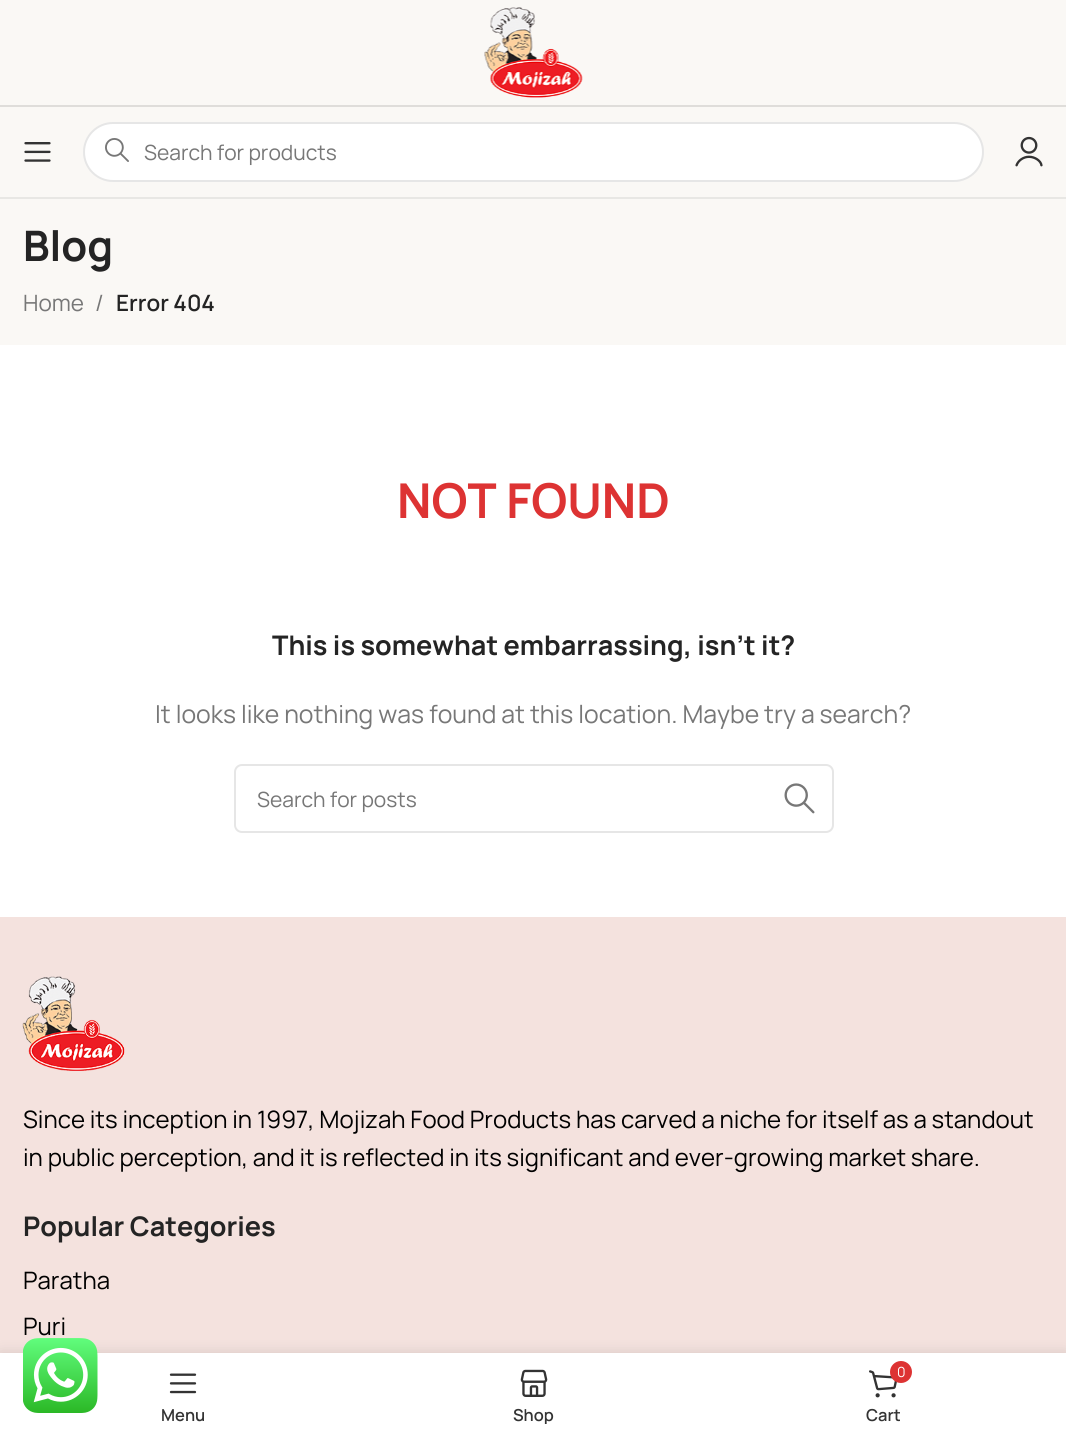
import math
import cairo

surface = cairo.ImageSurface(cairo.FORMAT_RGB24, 1066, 1435)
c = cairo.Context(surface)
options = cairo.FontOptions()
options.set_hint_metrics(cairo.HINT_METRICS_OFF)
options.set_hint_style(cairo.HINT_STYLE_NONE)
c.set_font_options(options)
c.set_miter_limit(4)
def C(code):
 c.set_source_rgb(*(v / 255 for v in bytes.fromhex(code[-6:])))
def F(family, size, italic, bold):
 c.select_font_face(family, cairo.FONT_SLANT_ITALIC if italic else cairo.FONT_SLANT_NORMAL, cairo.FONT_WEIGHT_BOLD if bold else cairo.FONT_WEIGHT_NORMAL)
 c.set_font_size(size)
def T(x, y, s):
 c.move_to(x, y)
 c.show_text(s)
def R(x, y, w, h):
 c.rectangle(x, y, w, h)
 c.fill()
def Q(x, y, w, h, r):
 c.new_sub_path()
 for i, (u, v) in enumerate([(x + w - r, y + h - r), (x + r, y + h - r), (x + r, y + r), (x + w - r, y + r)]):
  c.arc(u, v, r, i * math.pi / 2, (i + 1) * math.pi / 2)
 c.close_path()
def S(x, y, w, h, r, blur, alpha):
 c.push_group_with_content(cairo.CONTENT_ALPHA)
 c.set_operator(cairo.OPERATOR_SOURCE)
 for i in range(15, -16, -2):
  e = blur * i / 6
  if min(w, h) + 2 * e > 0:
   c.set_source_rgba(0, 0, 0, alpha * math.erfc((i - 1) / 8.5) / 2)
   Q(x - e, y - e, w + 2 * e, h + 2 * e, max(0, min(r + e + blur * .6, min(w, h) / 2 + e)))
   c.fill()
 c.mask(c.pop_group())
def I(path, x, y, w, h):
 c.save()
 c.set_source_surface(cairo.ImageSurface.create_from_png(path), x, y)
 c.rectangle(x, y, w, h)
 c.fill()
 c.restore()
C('ffffff')
c.paint()
C('faf8f5')
R(0,0,1066,105)
C('dfddda')
R(0,105,1066,2)
I('1.png',484,7,99,91)
C('faf8f5')
R(0,107,1066,90)
C('e8e7e4')
R(0,197,1066,2)
I('2.png',24,142,27,20)
C('ffffff')
Q(83,122,901,60,30)
c.fill()
Q(84,123,899,58,29)
c.set_source_rgba(0,0,0,0.1)
c.stroke()
I('3.png',105,138,24,24)
F('Manrope',21,0,0)
C('777777')
T(144,160,'Search for products')
I('4.png',1015,136,28,31)
C('faf8f5')
R(0,199,1066,146)
F('Manrope',42,0,1)
C('242424')
T(23,261,'Blog')
F('Manrope',22.5,0,0)
C('777777')
T(23,311,'Home')
T(95,311,'/')
F('Manrope SemiBold',22.5,0,0)
C('242424')
T(116,311,'Error 404')
F('Manrope',48,0,1)
C('dd3333')
T(397,518,'NOT FOUND')
F('Manrope',27,0,1)
C('242424')
T(272,655,'This is somewhat embarrassing, isn’t it?')
F('Manrope',24.75,0,0)
C('777777')
T(155,723,'It looks like nothing was found at this location. Maybe try a search?')
Q(235,765,598,67,7)
C('e6e6e6')
c.stroke()
F('Manrope',21,0,0)
C('777777')
T(257,807,'Search for posts')
I('5.png',784,783,31,31)
C('f4e2de')
R(0,917,1066,436)
I('6.png',22,976,103,95)
F('Manrope',24,0,0)
C('000000')
T(23,1128,'Since its inception in 1997, Mojizah Food Products has carved a niche for itself as a standout')
T(23,1166,'in public perception, and it is reflected in its significant and ever-growing market share.')
F('Manrope',27,0,1)
C('242424')
T(23,1236,'Popular Categories')
F('Manrope',24,0,0)
C('000000')
T(23,1289,'Paratha')
T(23,1335,'Puri')
C('000000')
S(0,1353,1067,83,0,7,.12)
C('ffffff')
R(0,1353,1066,82)
I('7.png',23,1338,75,75)
I('8.png',169,1373,28,21)
F('Manrope SemiBold',16.5,0,0)
C('333333')
T(161,1421,'Menu')
I('9.png',520,1369,28,28)
c.save()
c.rectangle(374,1404,319,20)
c.clip()
T(513,1421,'Shop')
c.restore()
I('10.png',869,1370,28,28)
C('dd3333')
c.arc(901,1372,11,0,2 * math.pi)
c.fill()
F('Manrope',14,0,0)
C('ffffff')
T(897,1377,'0')
F('Manrope SemiBold',16.5,0,0)
C('333333')
T(866,1421,'Cart')
surface.write_to_png('o.png')
